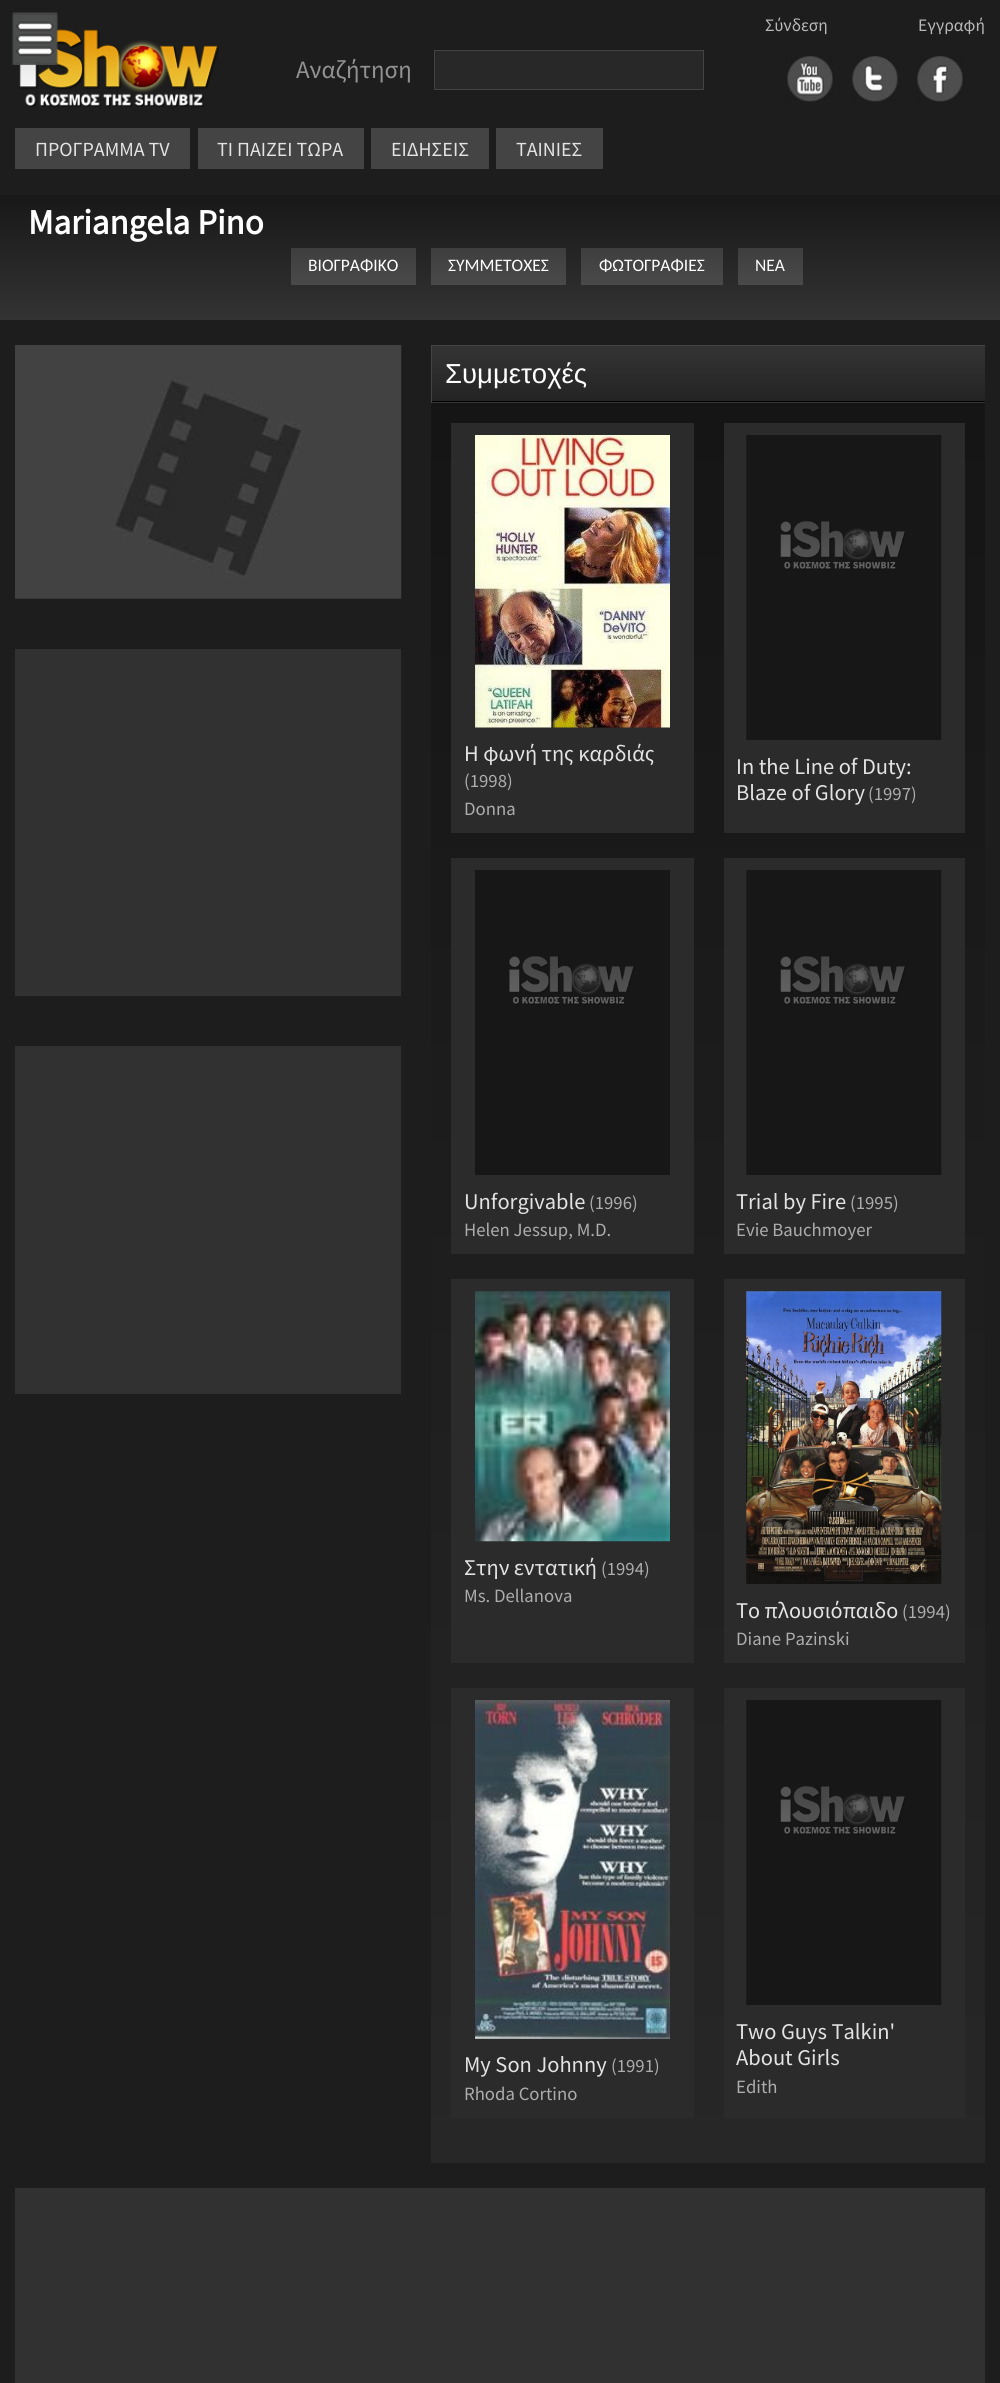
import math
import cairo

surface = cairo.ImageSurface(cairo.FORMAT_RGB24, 1000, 2383)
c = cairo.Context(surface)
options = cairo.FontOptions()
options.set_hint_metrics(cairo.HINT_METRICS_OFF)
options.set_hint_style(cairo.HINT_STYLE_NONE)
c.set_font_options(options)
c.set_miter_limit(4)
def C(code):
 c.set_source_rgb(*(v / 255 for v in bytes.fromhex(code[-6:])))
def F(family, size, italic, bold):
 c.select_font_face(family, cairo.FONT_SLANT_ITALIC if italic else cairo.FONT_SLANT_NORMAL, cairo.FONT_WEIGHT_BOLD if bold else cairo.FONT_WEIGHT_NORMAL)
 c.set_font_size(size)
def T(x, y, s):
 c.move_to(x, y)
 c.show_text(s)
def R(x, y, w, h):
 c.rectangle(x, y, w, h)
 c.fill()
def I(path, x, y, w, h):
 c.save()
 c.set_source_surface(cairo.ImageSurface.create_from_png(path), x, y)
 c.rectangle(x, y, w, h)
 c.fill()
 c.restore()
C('1d1d1d')
c.paint()
I('5.png',19,29,200,78)
I('1.png',12,12,46,53)
F('Source Sans Pro',17.5,0,0)
C('b9b9b9')
T(765,31,'Σύνδεση')
T(918,31,'Εγγραφή')
I('2.png',787,56,46,46)
I('3.png',852,56,46,46)
I('4.png',917,56,46,46)
F('Source Sans Pro',25,0,0)
C('929292')
T(296,78,'Αναζήτηση')
C('282828')
c.rectangle(434.5,50.5,269,39)
c.fill_preserve()
C('434343')
c.set_line_width(1)
c.stroke()
C('444444')
R(15,128,175,41)
F('Source Sans Pro',20,0,0)
C('e3e3e3')
T(35,156,'ΠΡΟΓΡΑΜΜΑ TV')
C('444444')
R(198,128,166,41)
C('e3e3e3')
T(217,156,'ΤΙ ΠΑΙΖΕΙ ΤΩΡΑ')
C('444444')
R(371,128,118,41)
C('e3e3e3')
T(391,156,'ΕΙΔΗΣΕΙΣ')
C('444444')
R(496,128,107,41)
C('e3e3e3')
T(516,156,'ΤΑΙΝΙΕΣ')
gradient = cairo.LinearGradient(500,195,500,320)
gradient.add_color_stop_rgba(0,0.094,0.094,0.094,1)
gradient.add_color_stop_rgba(1,0.2,0.2,0.2,1)
c.set_source(gradient)
R(0,195,1000,125)
F('Source Sans Pro',35,0,1)
C('ffffff')
T(28,234,'Mariangela Pino')
gradient = cairo.LinearGradient(354,248,354,285)
gradient.add_color_stop_rgba(0,0.243,0.243,0.243,1)
gradient.add_color_stop_rgba(1,0.29,0.29,0.29,1)
c.set_source(gradient)
R(291,248,125,37)
F('Carlito',17.5,0,0)
C('ffffff')
T(308,271,'ΒΙΟΓΡΑΦΙΚΟ')
gradient = cairo.LinearGradient(499,248,499,285)
gradient.add_color_stop_rgba(0,0.243,0.243,0.243,1)
gradient.add_color_stop_rgba(1,0.29,0.29,0.29,1)
c.set_source(gradient)
R(431,248,135,37)
C('ffffff')
T(448,271,'ΣΥΜΜΕΤΟΧΕΣ')
gradient = cairo.LinearGradient(652,248,652,285)
gradient.add_color_stop_rgba(0,0.243,0.243,0.243,1)
gradient.add_color_stop_rgba(1,0.29,0.29,0.29,1)
c.set_source(gradient)
R(581,248,142,37)
C('ffffff')
T(599,271,'ΦΩΤΟΓΡΑΦΙΕΣ')
gradient = cairo.LinearGradient(770,248,770,285)
gradient.add_color_stop_rgba(0,0.243,0.243,0.243,1)
gradient.add_color_stop_rgba(1,0.29,0.29,0.29,1)
c.set_source(gradient)
R(738,248,65,37)
C('ffffff')
T(755,271,'ΝΕΑ')
I('6.png',15,345,387,254)
C('313131')
R(15,649,386,347)
R(15,1046,386,348)
gradient = cairo.LinearGradient(709,346,709,401)
gradient.add_color_stop_rgba(0,0.204,0.204,0.204,1)
gradient.add_color_stop_rgba(1,0.141,0.141,0.141,1)
c.set_source(gradient)
R(432,346,553,55)
gradient = cairo.LinearGradient(709,401,709,456)
gradient.add_color_stop_rgba(0,0.204,0.204,0.204,1)
gradient.add_color_stop_rgba(1,0.141,0.141,0.141,1)
c.set_source(gradient)
R(431,402,554,1)
C('444444')
R(431,345,554,1)
C('000000')
R(431,401,554,1)
C('444444')
R(431,345,1,58)
F('Liberation Sans',27.5,0,0)
C('ffffff')
T(445,383,'Συμμετοχές')
gradient = cairo.LinearGradient(708,403,708,2163)
gradient.add_color_stop_rgba(0,0.082,0.082,0.082,1)
gradient.add_color_stop_rgba(1,0.153,0.153,0.153,1)
c.set_source(gradient)
R(431,403,554,1760)
C('2b2b2b')
R(451,423,243,410)
I('7.png',475,435,195,293)
F('Source Sans Pro',22.5,0,0)
C('e3e3e3')
T(464,761,'Η φωνή της καρδιάς')
F('Source Sans Pro',18.75,0,0)
C('adadad')
T(464,787,'(1998)')
T(464,815,'Donna')
C('2b2b2b')
R(724,423,241,410)
I('8.png',746,435,196,305)
F('Source Sans Pro',22.5,0,0)
C('e3e3e3')
T(736,774,'In the Line of Duty:')
T(736,800,'Blaze of Glory')
F('Source Sans Pro',18.75,0,0)
C('adadad')
T(868,800,'(1997)')
C('2b2b2b')
R(451,858,243,396)
I('9.png',475,870,195,305)
F('Source Sans Pro',22.5,0,0)
C('e3e3e3')
T(464,1209,'Unforgivable')
F('Source Sans Pro',18.75,0,0)
C('adadad')
T(589,1209,'(1996)')
T(464,1236,'Helen Jessup, M.D.')
C('2b2b2b')
R(724,858,241,396)
I('8.png',746,870,196,305)
F('Source Sans Pro',22.5,0,0)
C('e3e3e3')
T(736,1209,'Trial by Fire')
F('Source Sans Pro',18.75,0,0)
C('adadad')
T(850,1209,'(1995)')
T(736,1236,'Evie Bauchmoyer')
C('2b2b2b')
R(451,1279,243,384)
I('10.png',475,1291,195,251)
F('Source Sans Pro',22.5,0,0)
C('e3e3e3')
T(464,1575,'Στην εντατική')
F('Source Sans Pro',18.75,0,0)
C('adadad')
T(601,1575,'(1994)')
T(464,1602,'Ms. Dellanova')
C('2b2b2b')
R(724,1279,241,384)
I('11.png',746,1291,196,293)
F('Source Sans Pro',22.5,0,0)
C('e3e3e3')
T(736,1618,'Το πλουσιόπαιδο')
F('Source Sans Pro',18.75,0,0)
C('adadad')
T(902,1618,'(1994)')
T(736,1645,'Diane Pazinski')
C('2b2b2b')
R(451,1688,243,430)
I('12.png',475,1700,195,339)
F('Source Sans Pro',22.5,0,0)
C('e3e3e3')
T(464,2072,'My Son Johnny')
F('Source Sans Pro',18.75,0,0)
C('adadad')
T(611,2072,'(1991)')
T(464,2100,'Rhoda Cortino')
C('2b2b2b')
R(724,1688,241,430)
I('8.png',746,1700,196,305)
F('Source Sans Pro',22.5,0,0)
C('e3e3e3')
T(736,2039,'Two Guys Talkin\'')
T(736,2065,'About Girls')
F('Source Sans Pro',18.75,0,0)
C('adadad')
T(736,2093,'Edith')
C('313131')
R(15,2188,970,195)
surface.write_to_png('o.png')
